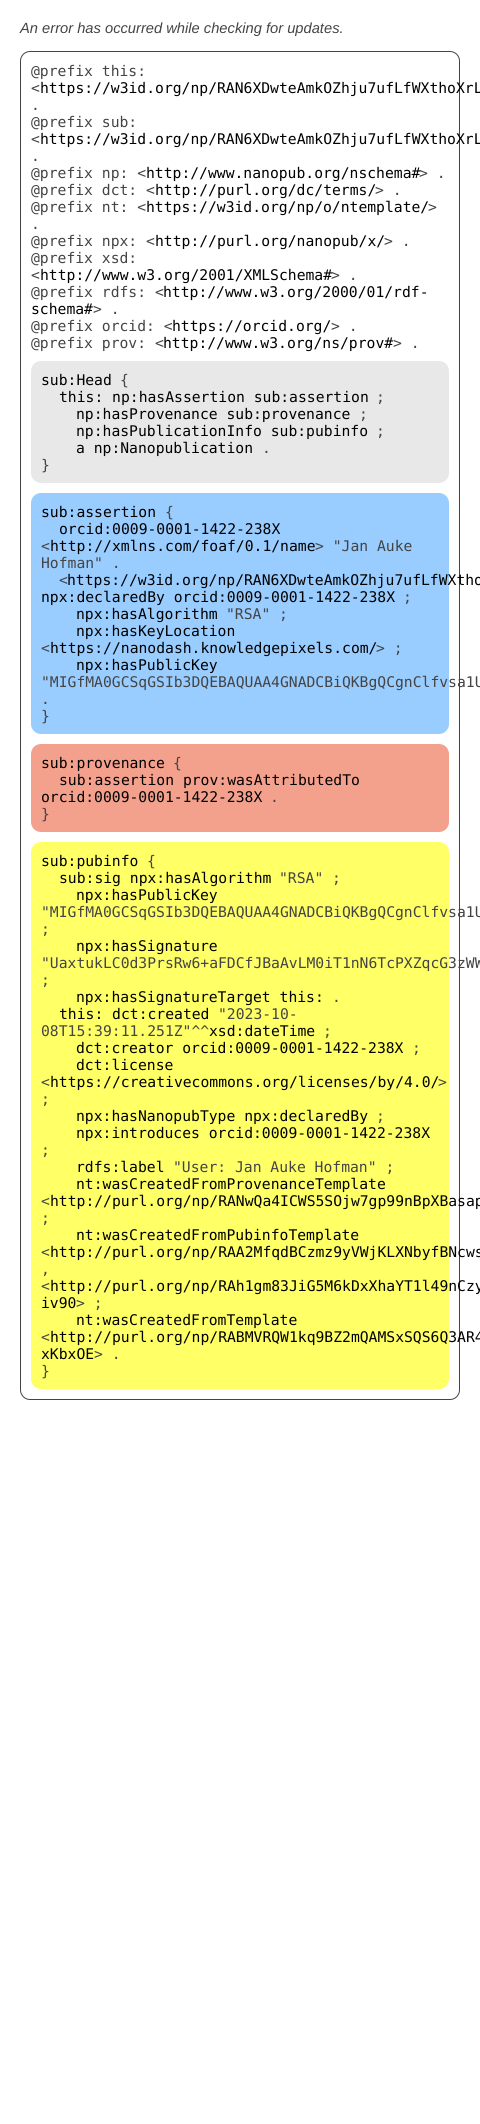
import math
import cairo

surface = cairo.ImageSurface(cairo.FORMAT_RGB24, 480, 2124)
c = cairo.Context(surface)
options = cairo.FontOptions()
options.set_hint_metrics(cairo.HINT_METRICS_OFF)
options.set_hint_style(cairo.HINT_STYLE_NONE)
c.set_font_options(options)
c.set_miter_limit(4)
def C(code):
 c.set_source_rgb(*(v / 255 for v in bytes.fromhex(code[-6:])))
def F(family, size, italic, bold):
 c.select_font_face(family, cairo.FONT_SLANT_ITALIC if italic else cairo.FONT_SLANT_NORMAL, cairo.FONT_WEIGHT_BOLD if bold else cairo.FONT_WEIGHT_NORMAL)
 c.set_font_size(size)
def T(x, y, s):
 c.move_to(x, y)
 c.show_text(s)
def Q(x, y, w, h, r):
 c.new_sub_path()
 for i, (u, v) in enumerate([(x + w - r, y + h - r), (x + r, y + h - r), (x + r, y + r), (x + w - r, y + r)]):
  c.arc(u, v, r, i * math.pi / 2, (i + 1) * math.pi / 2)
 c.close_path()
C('ffffff')
c.paint()
F('Liberation Sans',14.7,1,0)
C('444444')
T(20,33,'An error has occurred while checking for updates.')
Q(20.5,51.5,439,1348,9.5)
c.set_line_width(1)
c.stroke()
F('DejaVu Sans Mono',14.7,0,0)
T(31,76,'@prefix this:')
T(31,93,'<')
C('000000')
T(40,93,'https://w3id.org/np/RAN6XDwteAmkOZhju7ufLfWXthoXrL')
C('444444')
T(31,110,'.')
T(31,127,'@prefix sub:')
T(31,144,'<')
C('000000')
T(40,144,'https://w3id.org/np/RAN6XDwteAmkOZhju7ufLfWXthoXrL')
C('444444')
T(31,161,'.')
T(31,178,'@prefix np: <')
C('000000')
T(146,178,'http://www.nanopub.org/nschema#')
C('444444')
T(419,178,'> .')
T(31,195,'@prefix dct: <')
C('000000')
T(155,195,'http://purl.org/dc/terms/')
C('444444')
T(375,195,'> .')
T(31,212,'@prefix nt: <')
C('000000')
T(146,212,'https://w3id.org/np/o/ntemplate/')
C('444444')
T(428,212,'>')
T(31,229,'.')
T(31,246,'@prefix npx: <')
C('000000')
T(155,246,'http://purl.org/nanopub/x/')
C('444444')
T(384,246,'> .')
T(31,263,'@prefix xsd:')
T(31,280,'<')
C('000000')
T(40,280,'http://www.w3.org/2001/XMLSchema#')
C('444444')
T(331,280,'> .')
T(31,297,'@prefix rdfs: <')
C('000000')
T(163,297,'http://www.w3.org/2000/01/rdf-')
T(31,314,'schema#')
C('444444')
T(93,314,'> .')
T(31,331,'@prefix orcid: <')
C('000000')
T(172,331,'https://orcid.org/')
C('444444')
T(331,331,'> .')
T(31,348,'@prefix prov: <')
C('000000')
T(163,348,'http://www.w3.org/ns/prov#')
C('444444')
T(393,348,'> .')
C('e8e8e8')
Q(31,361,418,122,10)
c.fill()
C('000000')
T(41,385,'sub:Head')
C('444444')
T(120,385,'{')
C('000000')
T(59,402,'this: np:hasAssertion sub:assertion')
C('444444')
T(376,402,';')
C('000000')
T(76,419,'np:hasProvenance sub:provenance')
C('444444')
T(359,419,';')
C('000000')
T(76,436,'np:hasPublicationInfo sub:pubinfo')
C('444444')
T(376,436,';')
C('000000')
T(76,453,'a np:Nanopublication')
C('444444')
T(262,453,'.')
T(41,470,'}')
C('99ccff')
Q(31,493,418,241,10)
c.fill()
C('000000')
T(41,517,'sub:assertion')
C('444444')
T(165,517,'{')
C('000000')
T(59,534,'orcid:0009-0001-1422-238X')
C('444444')
T(41,551,'<')
C('000000')
T(50,551,'http://xmlns.com/foaf/0.1/name')
C('444444')
T(315,551,'> "Jan Auke')
T(41,568,'Hofman" .')
T(59,585,'<')
C('000000')
T(67,585,'https://w3id.org/np/RAN6XDwteAmkOZhju7ufLfWXtho')
T(41,602,'npx:declaredBy orcid:0009-0001-1422-238X')
C('444444')
T(403,602,';')
C('000000')
T(76,619,'npx:hasAlgorithm')
C('444444')
T(226,619,'"RSA" ;')
C('000000')
T(76,636,'npx:hasKeyLocation')
C('444444')
T(41,653,'<')
C('000000')
T(50,653,'https://nanodash.knowledgepixels.com/')
C('444444')
T(376,653,'> ;')
C('000000')
T(76,670,'npx:hasPublicKey')
C('444444')
T(41,687,'"MIGfMA0GCSqGSIb3DQEBAQUAA4GNADCBiQKBgQCgnClfvsa1U')
T(41,704,'.')
T(41,721,'}')
C('f3a08c')
Q(31,744,418,88,10)
c.fill()
C('000000')
T(41,768,'sub:provenance')
C('444444')
T(173,768,'{')
C('000000')
T(59,785,'sub:assertion prov:wasAttributedTo')
T(41,802,'orcid:0009-0001-1422-238X')
C('444444')
T(270,802,'.')
T(41,819,'}')
C('ffff66')
Q(31,842,418,547,10)
c.fill()
C('000000')
T(41,866,'sub:pubinfo')
C('444444')
T(147,866,'{')
C('000000')
T(59,883,'sub:sig npx:hasAlgorithm')
C('444444')
T(279,883,'"RSA" ;')
C('000000')
T(76,900,'npx:hasPublicKey')
C('444444')
T(41,917,'"MIGfMA0GCSqGSIb3DQEBAQUAA4GNADCBiQKBgQCgnClfvsa1U')
T(41,934,';')
C('000000')
T(76,951,'npx:hasSignature')
C('444444')
T(41,968,'"UaxtukLC0d3PrsRw6+aFDCfJBaAvLM0iT1nN6TcPXZqcG3zWW')
T(41,985,';')
C('000000')
T(76,1002,'npx:hasSignatureTarget this:')
C('444444')
T(332,1002,'.')
C('000000')
T(59,1019,'this: dct:created')
C('444444')
T(218,1019,'"2023-10-')
T(41,1036,'08T15:39:11.251Z"^^')
C('000000')
T(209,1036,'xsd:dateTime')
C('444444')
T(323,1036,';')
C('000000')
T(76,1053,'dct:creator orcid:0009-0001-1422-238X')
C('444444')
T(412,1053,';')
C('000000')
T(76,1070,'dct:license')
C('444444')
T(41,1087,'<')
C('000000')
T(50,1087,'https://creativecommons.org/licenses/by/4.0/')
C('444444')
T(438,1087,'>')
T(41,1104,';')
C('000000')
T(76,1121,'npx:hasNanopubType npx:declaredBy')
C('444444')
T(376,1121,';')
C('000000')
T(76,1138,'npx:introduces orcid:0009-0001-1422-238X')
C('444444')
T(41,1155,';')
C('000000')
T(76,1172,'rdfs:label')
C('444444')
T(173,1172,'"User: Jan Auke Hofman" ;')
C('000000')
T(76,1189,'nt:wasCreatedFromProvenanceTemplate')
C('444444')
T(41,1206,'<')
C('000000')
T(50,1206,'http://purl.org/np/RANwQa4ICWS5SOjw7gp99nBpXBasap')
C('444444')
T(41,1223,';')
C('000000')
T(76,1240,'nt:wasCreatedFromPubinfoTemplate')
C('444444')
T(41,1257,'<')
C('000000')
T(50,1257,'http://purl.org/np/RAA2MfqdBCzmz9yVWjKLXNbyfBNcws')
C('444444')
T(41,1274,',')
T(41,1291,'<')
C('000000')
T(50,1291,'http://purl.org/np/RAh1gm83JiG5M6kDxXhaYT1l49nCzy')
T(41,1308,'iv90')
C('444444')
T(76,1308,'> ;')
C('000000')
T(76,1325,'nt:wasCreatedFromTemplate')
C('444444')
T(41,1342,'<')
C('000000')
T(50,1342,'http://purl.org/np/RABMVRQW1kq9BZ2mQAMSxSQS6Q3AR4')
T(41,1359,'xKbxOE')
C('444444')
T(94,1359,'> .')
T(41,1376,'}')
surface.write_to_png('o.png')
